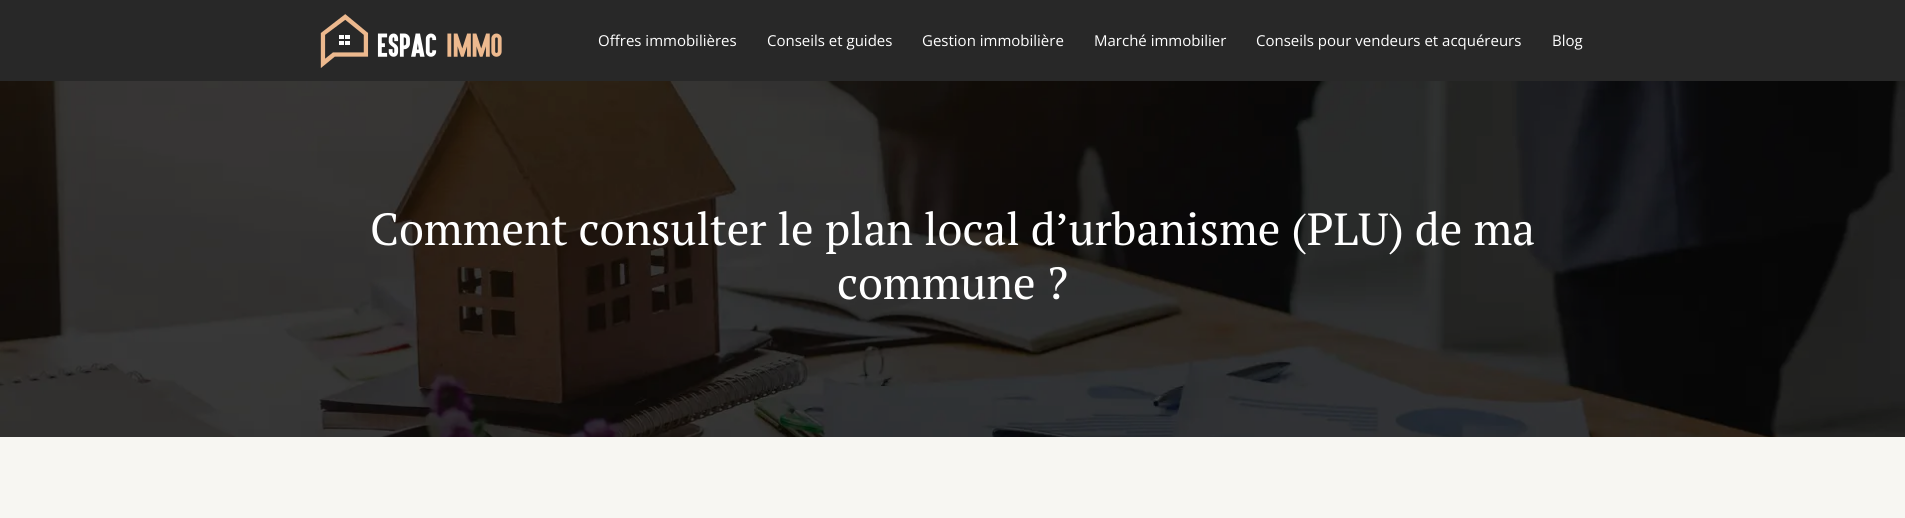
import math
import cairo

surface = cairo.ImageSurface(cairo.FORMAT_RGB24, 1905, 518)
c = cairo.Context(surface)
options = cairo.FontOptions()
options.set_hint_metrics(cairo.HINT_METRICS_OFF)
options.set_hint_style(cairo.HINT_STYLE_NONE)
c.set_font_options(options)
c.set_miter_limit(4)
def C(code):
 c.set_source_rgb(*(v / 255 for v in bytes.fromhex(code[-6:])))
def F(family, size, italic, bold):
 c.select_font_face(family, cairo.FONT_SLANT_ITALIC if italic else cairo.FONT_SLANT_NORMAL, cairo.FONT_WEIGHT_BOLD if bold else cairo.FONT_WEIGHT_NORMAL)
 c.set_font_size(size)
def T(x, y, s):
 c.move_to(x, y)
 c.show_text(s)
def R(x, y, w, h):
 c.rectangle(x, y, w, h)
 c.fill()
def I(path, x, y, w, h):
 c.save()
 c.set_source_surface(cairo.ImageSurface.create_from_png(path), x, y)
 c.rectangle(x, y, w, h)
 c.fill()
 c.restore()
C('f7f6f2')
c.paint()
C('282828')
R(0,0,1905,81)
I('1.png',320,14,182,54)
F('Open Sans',15,0,0)
C('ffffff')
T(598,46,'Offres immobilières')
T(767,46,'Conseils et guides')
T(922,46,'Gestion immobilière')
T(1094,46,'Marché immobilier')
T(1256,46,'Conseils pour vendeurs et acquéreurs')
T(1552,46,'Blog')
I('2.png',0,81,1905,356)
F('PT Serif',45,0,0)
T(370,245,'Comment consulter le plan local d’urbanisme (PLU) de ma')
T(837,299,'commune ?')
surface.write_to_png('o.png')
